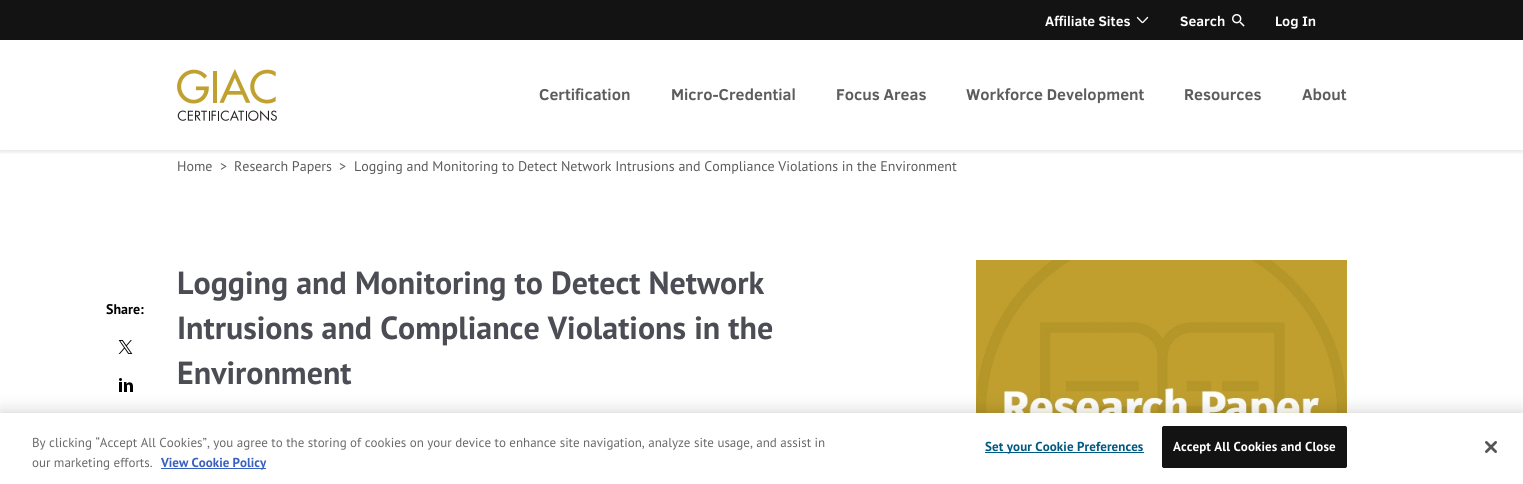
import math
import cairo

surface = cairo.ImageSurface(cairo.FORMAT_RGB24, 1523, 484)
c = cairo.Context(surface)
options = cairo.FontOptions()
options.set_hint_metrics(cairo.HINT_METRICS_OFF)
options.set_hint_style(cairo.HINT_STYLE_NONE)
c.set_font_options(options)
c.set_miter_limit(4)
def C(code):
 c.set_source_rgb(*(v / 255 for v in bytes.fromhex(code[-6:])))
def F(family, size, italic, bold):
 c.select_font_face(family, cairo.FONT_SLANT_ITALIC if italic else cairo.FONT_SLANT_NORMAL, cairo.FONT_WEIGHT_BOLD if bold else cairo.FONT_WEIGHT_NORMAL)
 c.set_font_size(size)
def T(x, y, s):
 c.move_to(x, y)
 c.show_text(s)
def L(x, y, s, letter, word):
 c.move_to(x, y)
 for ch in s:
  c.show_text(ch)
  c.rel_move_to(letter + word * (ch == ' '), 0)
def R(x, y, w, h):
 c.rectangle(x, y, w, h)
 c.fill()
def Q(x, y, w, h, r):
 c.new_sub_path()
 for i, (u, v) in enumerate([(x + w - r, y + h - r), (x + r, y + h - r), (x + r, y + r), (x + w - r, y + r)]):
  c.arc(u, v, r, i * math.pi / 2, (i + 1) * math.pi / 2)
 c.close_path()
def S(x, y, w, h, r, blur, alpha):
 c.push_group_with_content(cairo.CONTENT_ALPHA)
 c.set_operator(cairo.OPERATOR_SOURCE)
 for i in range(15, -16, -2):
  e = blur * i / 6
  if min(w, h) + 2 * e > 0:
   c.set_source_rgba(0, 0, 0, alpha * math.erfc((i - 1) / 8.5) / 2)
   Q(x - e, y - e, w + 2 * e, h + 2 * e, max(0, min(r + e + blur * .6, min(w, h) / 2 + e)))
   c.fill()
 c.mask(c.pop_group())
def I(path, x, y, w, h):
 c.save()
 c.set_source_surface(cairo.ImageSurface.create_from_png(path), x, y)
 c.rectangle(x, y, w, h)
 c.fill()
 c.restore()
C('ffffff')
c.paint()
c.save()
c.rectangle(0,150,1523,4)
c.clip()
C('000000')
S(0,2,1523,150,0,2,.1)
c.restore()
C('131313')
R(0,0,1523,40)
F('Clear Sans',14,0,1)
C('ffffff')
T(1045,26,'Affiliate Sites')
I('1.png',1136,16,13,8)
I('2.png',1232,14,13,13)
T(1180,26,'Search')
T(1275,26,'Log In')
I('3.png',177,69,100,52)
F('Clear Sans',16,0,1)
C('5c5c5c')
T(539,100,'Certification')
T(671,100,'Micro-Credential')
T(836,100,'Focus Areas')
T(966,100,'Workforce Development')
T(1184,100,'Resources')
T(1302,100,'About')
F('PT Sans',14,0,1)
C('000000')
T(106,314,'Share:')
I('4.png',118,340,15,14)
I('5.png',119,378,14,14)
F('PT Sans',14,0,0)
C('5c5c5c')
T(177,171,'Home')
T(220,171,'>')
T(234,171,'Research Papers')
T(339,171,'>')
T(354,171,'Logging and Monitoring to Detect Network Intrusions and Compliance Violations in the Environment')
F('PT Sans',32,0,1)
C('4c4d54')
T(177,294,'Logging and Monitoring to Detect Network')
T(177,339,'Intrusions and Compliance Violations in the')
T(177,384,'Environment')
I('6.png',976,260,371,153)
C('000000')
S(0,413,1523,71,0,9,.2)
C('ffffff')
R(0,413,1523,71)
F('PT Sans',13,0,0)
C('696969')
T(32,447,'By clicking “Accept All Cookies”, you agree to the storing of cookies on your device to enhance site navigation, analyze site usage, and assist in')
T(32,467,'our marketing efforts.')
C('3860be')
R(161,468,105,1)
F('PT Sans',13,0,1)
T(161,467,'View Cookie Policy')
C('005980')
R(985,452,159,1)
L(985,451,'Set your Cookie Preferences',.1,0)
C('131313')
Q(1162.5,426.5,184,41,1.5)
c.fill_preserve()
c.set_line_width(1)
c.stroke()
C('ffffff')
L(1173,451,'Accept All Cookies and Close',.1,0)
I('7.png',1485,441,12,12)
surface.write_to_png('o.png')
